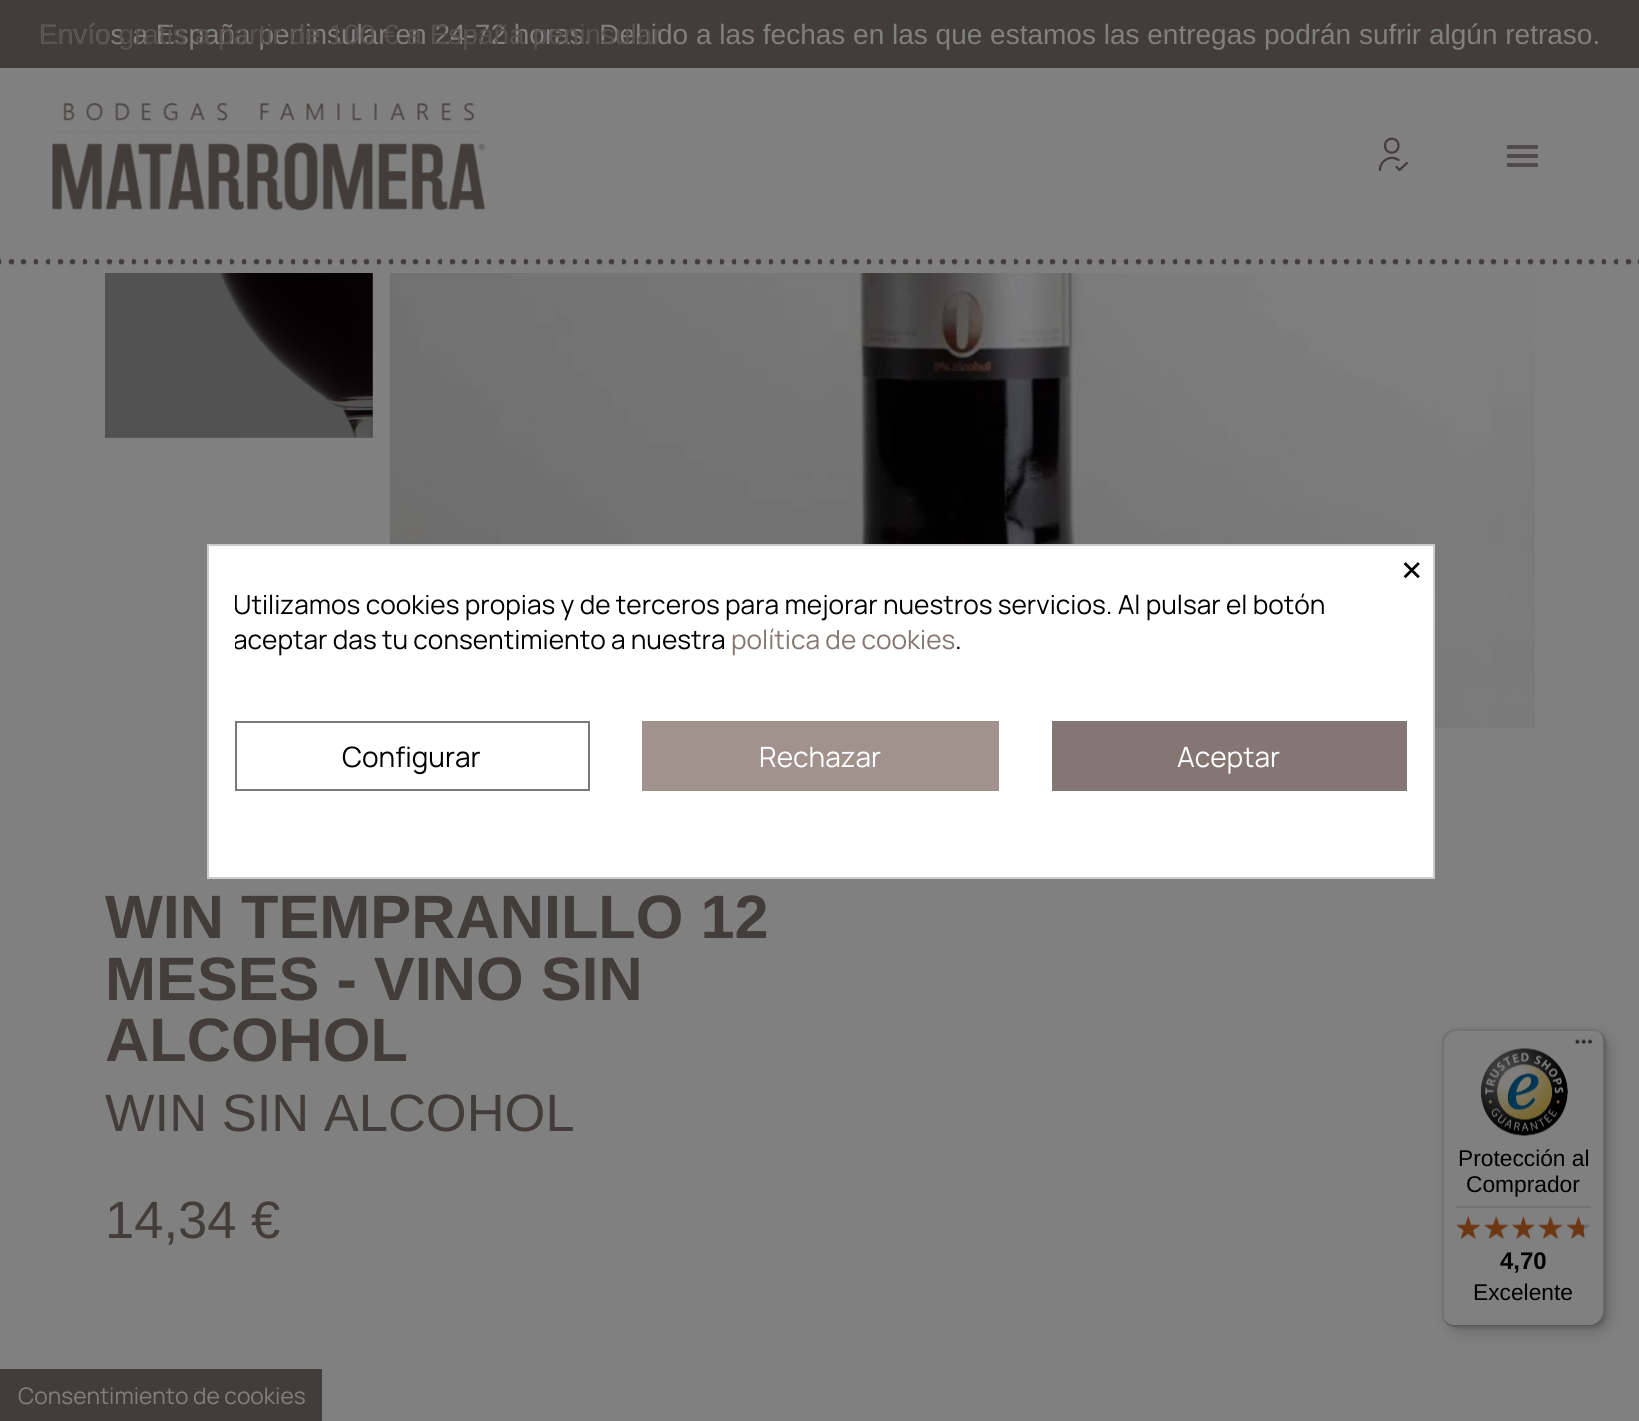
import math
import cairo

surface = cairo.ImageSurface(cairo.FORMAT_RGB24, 1639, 1421)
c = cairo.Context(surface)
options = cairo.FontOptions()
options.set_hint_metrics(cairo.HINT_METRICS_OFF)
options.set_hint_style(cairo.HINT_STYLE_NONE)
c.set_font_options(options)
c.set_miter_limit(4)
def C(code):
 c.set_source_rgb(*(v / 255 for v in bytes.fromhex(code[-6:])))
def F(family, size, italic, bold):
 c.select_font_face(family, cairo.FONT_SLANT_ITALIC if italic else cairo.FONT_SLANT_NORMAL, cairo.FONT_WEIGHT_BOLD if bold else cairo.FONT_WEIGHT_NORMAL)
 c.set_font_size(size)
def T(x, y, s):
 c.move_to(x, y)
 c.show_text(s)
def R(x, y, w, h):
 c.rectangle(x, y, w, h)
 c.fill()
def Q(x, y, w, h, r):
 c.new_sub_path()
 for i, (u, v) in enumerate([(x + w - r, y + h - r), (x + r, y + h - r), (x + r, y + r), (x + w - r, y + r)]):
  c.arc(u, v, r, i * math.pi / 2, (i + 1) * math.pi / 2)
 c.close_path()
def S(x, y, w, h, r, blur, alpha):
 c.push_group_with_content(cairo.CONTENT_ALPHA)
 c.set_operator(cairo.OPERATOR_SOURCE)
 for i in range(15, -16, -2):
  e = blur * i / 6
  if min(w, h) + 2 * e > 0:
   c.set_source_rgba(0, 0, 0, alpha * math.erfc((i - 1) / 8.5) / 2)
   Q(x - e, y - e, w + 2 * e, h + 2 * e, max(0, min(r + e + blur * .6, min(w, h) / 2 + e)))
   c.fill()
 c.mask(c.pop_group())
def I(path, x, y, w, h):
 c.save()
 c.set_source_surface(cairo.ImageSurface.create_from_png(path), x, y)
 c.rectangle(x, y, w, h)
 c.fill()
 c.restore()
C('808080')
c.paint()
C('5a5a5a')
R(105,273,268,165)
C('423c3a')
R(0,0,1639,68)
F('Liberation Sans',28,0,0)
C('808080')
T(39,44,'Envíos a España peninsular en 24-72 horas. Debido a las fechas en las que estamos las entregas podrán sufrir algún retraso.')
C('575352')
T(39,44,'Envío gratis a partir de 100 € a España peninsular')
I('1.png',52,103,433,108)
c.new_path()
c.move_to(1396.5,167)
c.line_to(1399.5,170)
c.line_to(1407,163)
c.move_to(1380,170)
c.curve_to(1380,160.5,1390.5,154.5,1398.5,160)
c.move_to(1398.5,145.5)
c.curve_to(1398.5,155,1385,155,1385,145.5)
c.curve_to(1385,136.5,1398.5,136.5,1398.5,145.5)
c.close_path()
C('423c3a')
c.set_line_width(2.2)
c.set_line_cap(cairo.LINE_CAP_ROUND)
c.set_line_join(cairo.LINE_JOIN_ROUND)
c.stroke()
C('4f4c4b')
R(1507,145,31,4)
R(1507,154,31,4)
R(1507,163,31,4)
I('2.png',0,258,1639,8)
I('3.png',105,273,268,164)
I('4.png',390,273,1145,455)
F('Liberation Sans',61.25,0,1)
C('423c3a')
T(105,938,'WIN TEMPRANILLO 12')
T(105,1000,'MESES - VINO SIN')
T(105,1061,'ALCOHOL')
F('Liberation Sans',52.5,0,0)
T(105,1131,'WIN SIN ALCOHOL')
T(105,1238,'14,34 €')
C('ffffff')
c.rectangle(208,545,1226,333)
c.fill_preserve()
C('cccccc')
c.set_line_width(2)
c.set_line_cap(cairo.LINE_CAP_BUTT)
c.set_line_join(cairo.LINE_JOIN_MITER)
c.stroke()
F('Manrope',44,0,0)
C('000000')
T(1401,586,'×')
c.save()
c.rectangle(235,588,1172,70)
c.clip()
F('Manrope',26.25,0,0)
T(233,614,'Utilizamos cookies propias y de terceros para mejorar nuestros servicios. Al pulsar el botón')
T(233,649,'aceptar das tu consentimiento a nuestra')
c.restore()
F('Manrope',26.25,0,0)
C('847773')
T(731,649,'política de cookies')
C('000000')
T(955,649,'.')
c.rectangle(236,722,353,68)
C('7a7a7a')
c.stroke()
F('Manrope',28,0,0)
C('000000')
T(342,767,'Configurar')
C('a1928d')
R(642,721,357,70)
C('ffffff')
T(759,767,'Rechazar')
C('847773')
R(1052,721,355,70)
C('ffffff')
T(1177,767,'Aceptar')
C('000000')
S(1447,1034,163,298,14,7,.15)
S(1444,1031,163,297,14,2,.15)
C('808080')
Q(1442,1029,163,298,14)
c.fill()
c.set_source_rgba(0,0,0,0.1)
c.new_path()
c.move_to(1458,1031)
c.line_to(1592,1031)
c.curve_to(1597,1031,1601,1033,1604,1037)
c.curve_to(1601,1032,1597,1029,1591,1029)
c.line_to(1456,1029)
c.curve_to(1448,1029,1442,1035,1442,1043)
c.line_to(1442,1313)
c.curve_to(1442,1319,1445,1323,1450,1326)
c.curve_to(1446,1323,1444,1319,1444,1314)
c.line_to(1444,1045)
c.curve_to(1444,1037,1450,1031,1458,1031)
c.close_path()
c.fill()
c.set_source_rgba(0,0,0,0.2)
c.new_path()
c.move_to(1444,1320)
c.curve_to(1446,1324,1451,1327,1456,1327)
c.line_to(1591,1327)
c.curve_to(1599,1327,1605,1321,1605,1313)
c.line_to(1605,1043)
c.curve_to(1605,1038,1603,1034,1599,1032)
c.curve_to(1602,1034,1603,1038,1603,1041)
c.line_to(1603,1311)
c.curve_to(1603,1318,1597,1325,1589,1325)
c.line_to(1454,1325)
c.curve_to(1450,1325,1447,1323,1444,1320)
c.close_path()
c.fill()
c.set_source_rgba(0.098,0.098,0.098,0.2)
c.new_path()
c.move_to(1443,1319)
c.curve_to(1446,1324,1450,1327,1456,1327)
c.line_to(1591,1327)
c.curve_to(1599,1327,1605,1321,1605,1313)
c.line_to(1605,1043)
c.curve_to(1605,1038,1603,1034,1599,1032)
c.curve_to(1602,1034,1604,1038,1604,1042)
c.line_to(1604,1311)
c.curve_to(1604,1319,1597,1325,1590,1325)
c.line_to(1455,1325)
c.curve_to(1450,1325,1446,1323,1443,1319)
c.close_path()
c.fill()
c.set_source_rgba(0.502,0.502,0.502,0.3)
c.new_path()
c.move_to(1445,1321)
c.curve_to(1447,1325,1451,1327,1456,1327)
c.line_to(1591,1327)
c.curve_to(1599,1327,1605,1321,1605,1313)
c.line_to(1605,1043)
c.curve_to(1605,1039,1604,1036,1601,1034)
c.curve_to(1603,1036,1604,1039,1604,1042)
c.line_to(1604,1312)
c.curve_to(1604,1319,1598,1326,1590,1326)
c.line_to(1455,1326)
c.curve_to(1451,1326,1447,1324,1445,1321)
c.close_path()
c.fill()
I('5.png',1575,1039,17,5)
I('6.png',1481,1048,87,88)
F('Liberation Sans',22.75,0,0)
C('000000')
T(1458,1166,'Protección al')
T(1466,1192,'Comprador')
C('737373')
R(1456,1206,135,2)
I('7.png',1456,1216,24,23)
I('8.png',1484,1216,24,23)
I('9.png',1512,1216,22,23)
I('10.png',1538,1216,25,23)
I('11.png',1567,1216,23,23)
I('12.png',1456,1216,24,23)
I('13.png',1484,1216,25,23)
I('14.png',1512,1216,23,23)
I('15.png',1538,1216,25,23)
I('16.png',1566,1216,18,23)
F('Liberation Sans',24,0,1)
C('000000')
T(1500,1269,'4,70')
F('Liberation Sans',22.75,0,0)
T(1473,1300,'Excelente')
C('423c3a')
R(0,1369,322,52)
F('Manrope',22.75,0,0)
C('808080')
T(18,1404,'Consentimiento de cookies')
surface.write_to_png('o.png')
